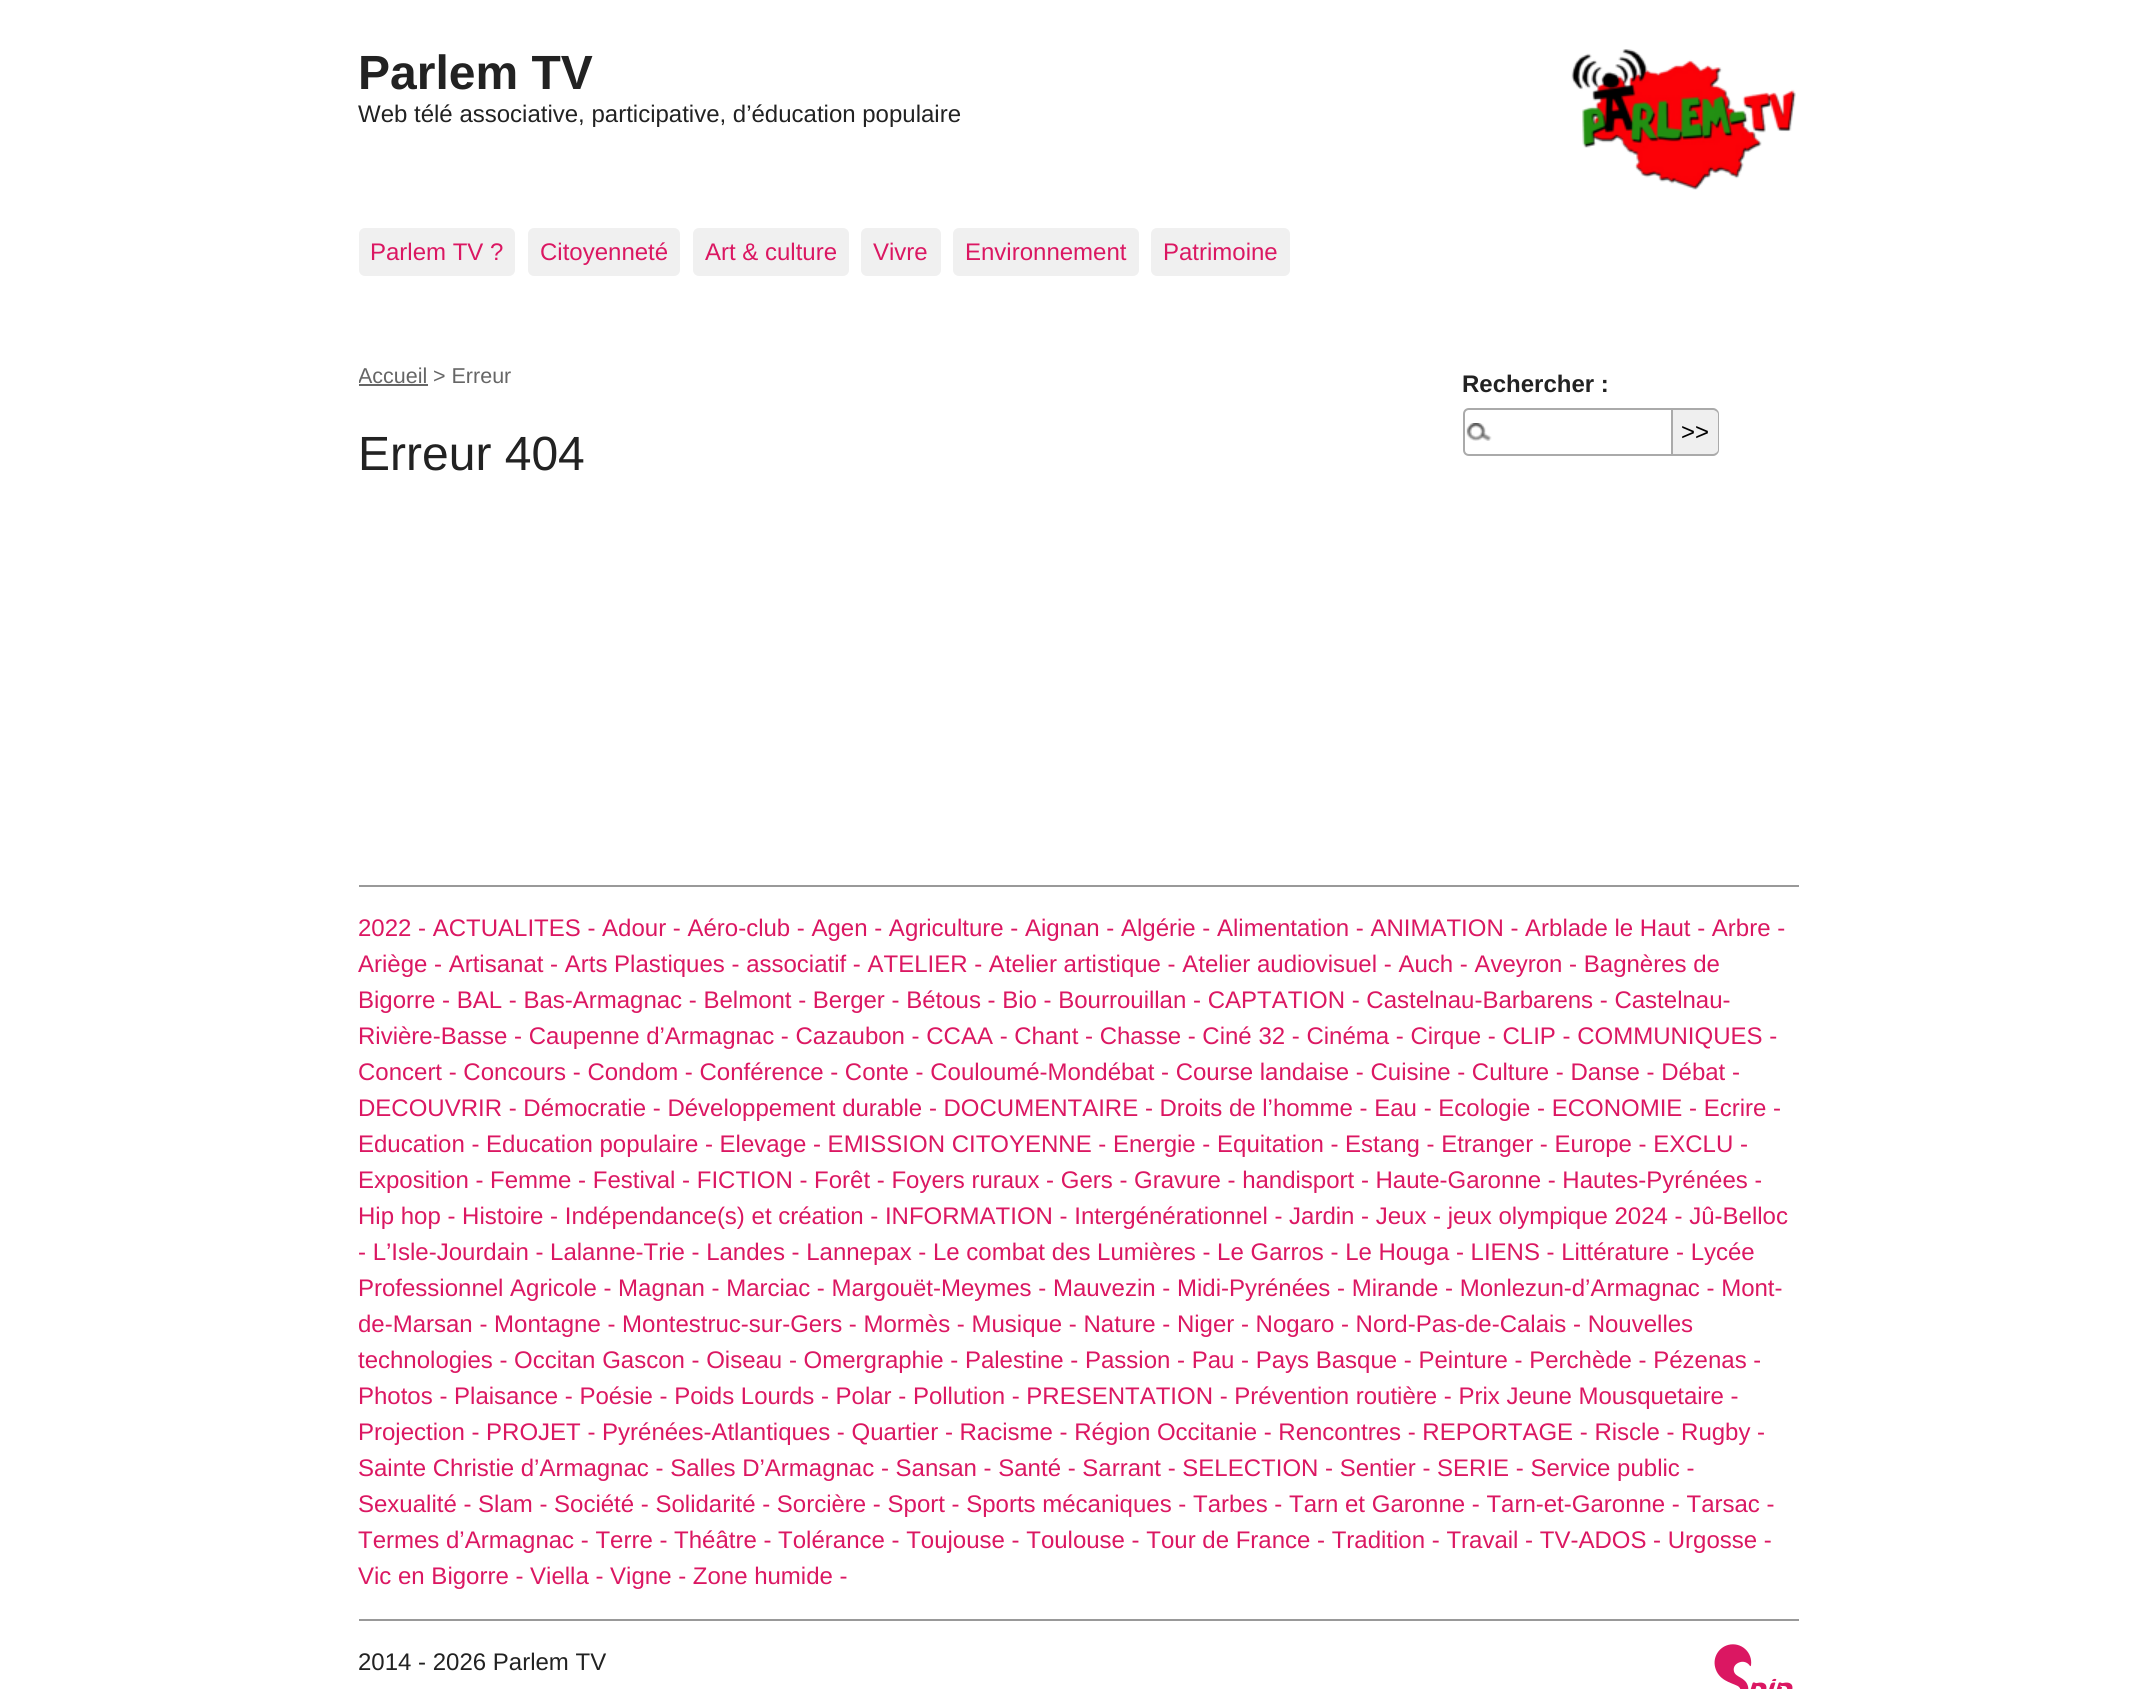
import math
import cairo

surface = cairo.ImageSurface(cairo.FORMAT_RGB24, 2155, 1689)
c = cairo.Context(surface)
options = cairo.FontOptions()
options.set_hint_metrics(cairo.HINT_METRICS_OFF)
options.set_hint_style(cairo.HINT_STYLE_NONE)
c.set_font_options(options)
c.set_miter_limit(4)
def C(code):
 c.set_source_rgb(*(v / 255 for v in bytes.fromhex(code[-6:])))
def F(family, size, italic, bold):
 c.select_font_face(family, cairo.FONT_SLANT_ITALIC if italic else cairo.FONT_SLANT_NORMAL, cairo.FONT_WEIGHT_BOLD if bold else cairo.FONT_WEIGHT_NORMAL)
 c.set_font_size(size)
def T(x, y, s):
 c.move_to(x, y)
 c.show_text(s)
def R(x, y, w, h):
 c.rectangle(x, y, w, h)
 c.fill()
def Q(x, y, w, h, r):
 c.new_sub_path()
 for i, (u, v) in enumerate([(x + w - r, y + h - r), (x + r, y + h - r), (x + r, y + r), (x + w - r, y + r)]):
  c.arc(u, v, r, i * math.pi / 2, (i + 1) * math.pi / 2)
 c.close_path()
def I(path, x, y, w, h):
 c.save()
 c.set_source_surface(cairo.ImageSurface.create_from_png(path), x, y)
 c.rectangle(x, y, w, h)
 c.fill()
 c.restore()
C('ffffff')
c.paint()
F('Liberation Sans',48,0,1)
C('222222')
T(358,89,'Parlem TV')
I('1.png',1571,49,225,141)
F('Liberation Sans',24,0,0)
T(358,122,'Web télé associative, participative, d’éducation populaire')
C('f0f0f0')
Q(359,228,156,48,6)
c.fill()
C('db1762')
T(370,260,'Parlem TV ?')
C('f0f0f0')
Q(528,228,152,48,6)
c.fill()
C('db1762')
T(540,260,'Citoyenneté')
C('f0f0f0')
Q(693,228,156,48,6)
c.fill()
C('db1762')
T(705,260,'Art & culture')
C('f0f0f0')
Q(861,228,80,48,6)
c.fill()
C('db1762')
T(873,260,'Vivre')
C('f0f0f0')
Q(953,228,186,48,6)
c.fill()
C('db1762')
T(965,260,'Environnement')
C('f0f0f0')
Q(1151,228,139,48,6)
c.fill()
C('db1762')
T(1163,260,'Patrimoine')
c.save()
c.rectangle(359,360,1008,525)
c.clip()
F('Liberation Sans',21.5,0,0)
C('666666')
T(358,383,'Accueil')
c.restore()
C('666666')
R(359,384,69,2)
F('Liberation Sans',21.5,0,0)
T(433,383,'> Erreur')
F('Liberation Sans',48,0,0)
C('222222')
T(358,470,'Erreur 404')
F('Liberation Sans',24,0,1)
T(1462,392,'Rechercher :')
I('2.png',1466,423,26,18)
c.new_path()
c.move_to(1469,409)
c.line_to(1672,409)
c.line_to(1672,455)
c.line_to(1469,455)
c.curve_to(1466,455,1464,453,1464,450)
c.line_to(1464,414)
c.curve_to(1464,411,1466,409,1469,409)
c.close_path()
C('aaaaaa')
c.stroke()
C('efefef')
c.new_path()
c.move_to(1673,408)
c.line_to(1713,408)
c.curve_to(1716.5,408,1719,410.5,1719,414)
c.line_to(1719,450)
c.curve_to(1719,453.5,1716.5,456,1713,456)
c.line_to(1673,456)
c.close_path()
c.fill()
C('aaaaaa')
c.set_fill_rule(cairo.FILL_RULE_EVEN_ODD)
c.new_path()
c.move_to(1672,408)
c.line_to(1713,408)
c.curve_to(1716,408,1719,411,1719,414)
c.line_to(1719,450)
c.curve_to(1719,453,1716,456,1713,456)
c.line_to(1672,456)
c.close_path()
c.move_to(1672,410)
c.line_to(1713,410)
c.curve_to(1715,410,1718,412,1718,414)
c.line_to(1718,450)
c.curve_to(1718,452,1715,454,1713,454)
c.line_to(1672,454)
c.close_path()
c.fill()
F('Liberation Sans',24,0,0)
C('000000')
T(1681,440,'>>')
C('999999')
R(359,885,1440,2)
C('db1762')
T(358,936,'2022 - ACTUALITES - Adour - Aéro-club - Agen - Agriculture - Aignan - Algérie - Alimentation - ANIMATION - Arblade le Haut - Arbre -')
T(358,972,'Ariège - Artisanat - Arts Plastiques - associatif - ATELIER - Atelier artistique - Atelier audiovisuel - Auch - Aveyron - Bagnères de')
T(358,1008,'Bigorre - BAL - Bas-Armagnac - Belmont - Berger - Bétous - Bio - Bourrouillan - CAPTATION - Castelnau-Barbarens - Castelnau-')
T(358,1044,'Rivière-Basse - Caupenne d’Armagnac - Cazaubon - CCAA - Chant - Chasse - Ciné 32 - Cinéma - Cirque - CLIP - COMMUNIQUES -')
T(358,1080,'Concert - Concours - Condom - Conférence - Conte - Couloumé-Mondébat - Course landaise - Cuisine - Culture - Danse - Débat -')
T(358,1116,'DECOUVRIR - Démocratie - Développement durable - DOCUMENTAIRE - Droits de l’homme - Eau - Ecologie - ECONOMIE - Ecrire -')
T(358,1152,'Education - Education populaire - Elevage - EMISSION CITOYENNE - Energie - Equitation - Estang - Etranger - Europe - EXCLU -')
T(358,1188,'Exposition - Femme - Festival - FICTION - Forêt - Foyers ruraux - Gers - Gravure - handisport - Haute-Garonne - Hautes-Pyrénées -')
T(358,1224,'Hip hop - Histoire - Indépendance(s) et création - INFORMATION - Intergénérationnel - Jardin - Jeux - jeux olympique 2024 - Jû-Belloc')
T(358,1260,'- L’Isle-Jourdain - Lalanne-Trie - Landes - Lannepax - Le combat des Lumières - Le Garros - Le Houga - LIENS - Littérature - Lycée')
T(358,1296,'Professionnel Agricole - Magnan - Marciac - Margouët-Meymes - Mauvezin - Midi-Pyrénées - Mirande - Monlezun-d’Armagnac - Mont-')
T(358,1332,'de-Marsan - Montagne - Montestruc-sur-Gers - Mormès - Musique - Nature - Niger - Nogaro - Nord-Pas-de-Calais - Nouvelles')
T(358,1368,'technologies - Occitan Gascon - Oiseau - Omergraphie - Palestine - Passion - Pau - Pays Basque - Peinture - Perchède - Pézenas -')
T(358,1404,'Photos - Plaisance - Poésie - Poids Lourds - Polar - Pollution - PRESENTATION - Prévention routière - Prix Jeune Mousquetaire -')
T(358,1440,'Projection - PROJET - Pyrénées-Atlantiques - Quartier - Racisme - Région Occitanie - Rencontres - REPORTAGE - Riscle - Rugby -')
T(358,1476,'Sainte Christie d’Armagnac - Salles D’Armagnac - Sansan - Santé - Sarrant - SELECTION - Sentier - SERIE - Service public -')
T(358,1512,'Sexualité - Slam - Société - Solidarité - Sorcière - Sport - Sports mécaniques - Tarbes - Tarn et Garonne - Tarn-et-Garonne - Tarsac -')
T(358,1548,'Termes d’Armagnac - Terre - Théâtre - Tolérance - Toujouse - Toulouse - Tour de France - Tradition - Travail - TV-ADOS - Urgosse -')
T(358,1584,'Vic en Bigorre - Viella - Vigne - Zone humide -')
C('999999')
R(359,1619,1440,2)
C('222222')
T(358,1670,'2014 - 2026 Parlem TV')
I('3.png',1714,1644,79,45)
surface.write_to_png('o.png')
